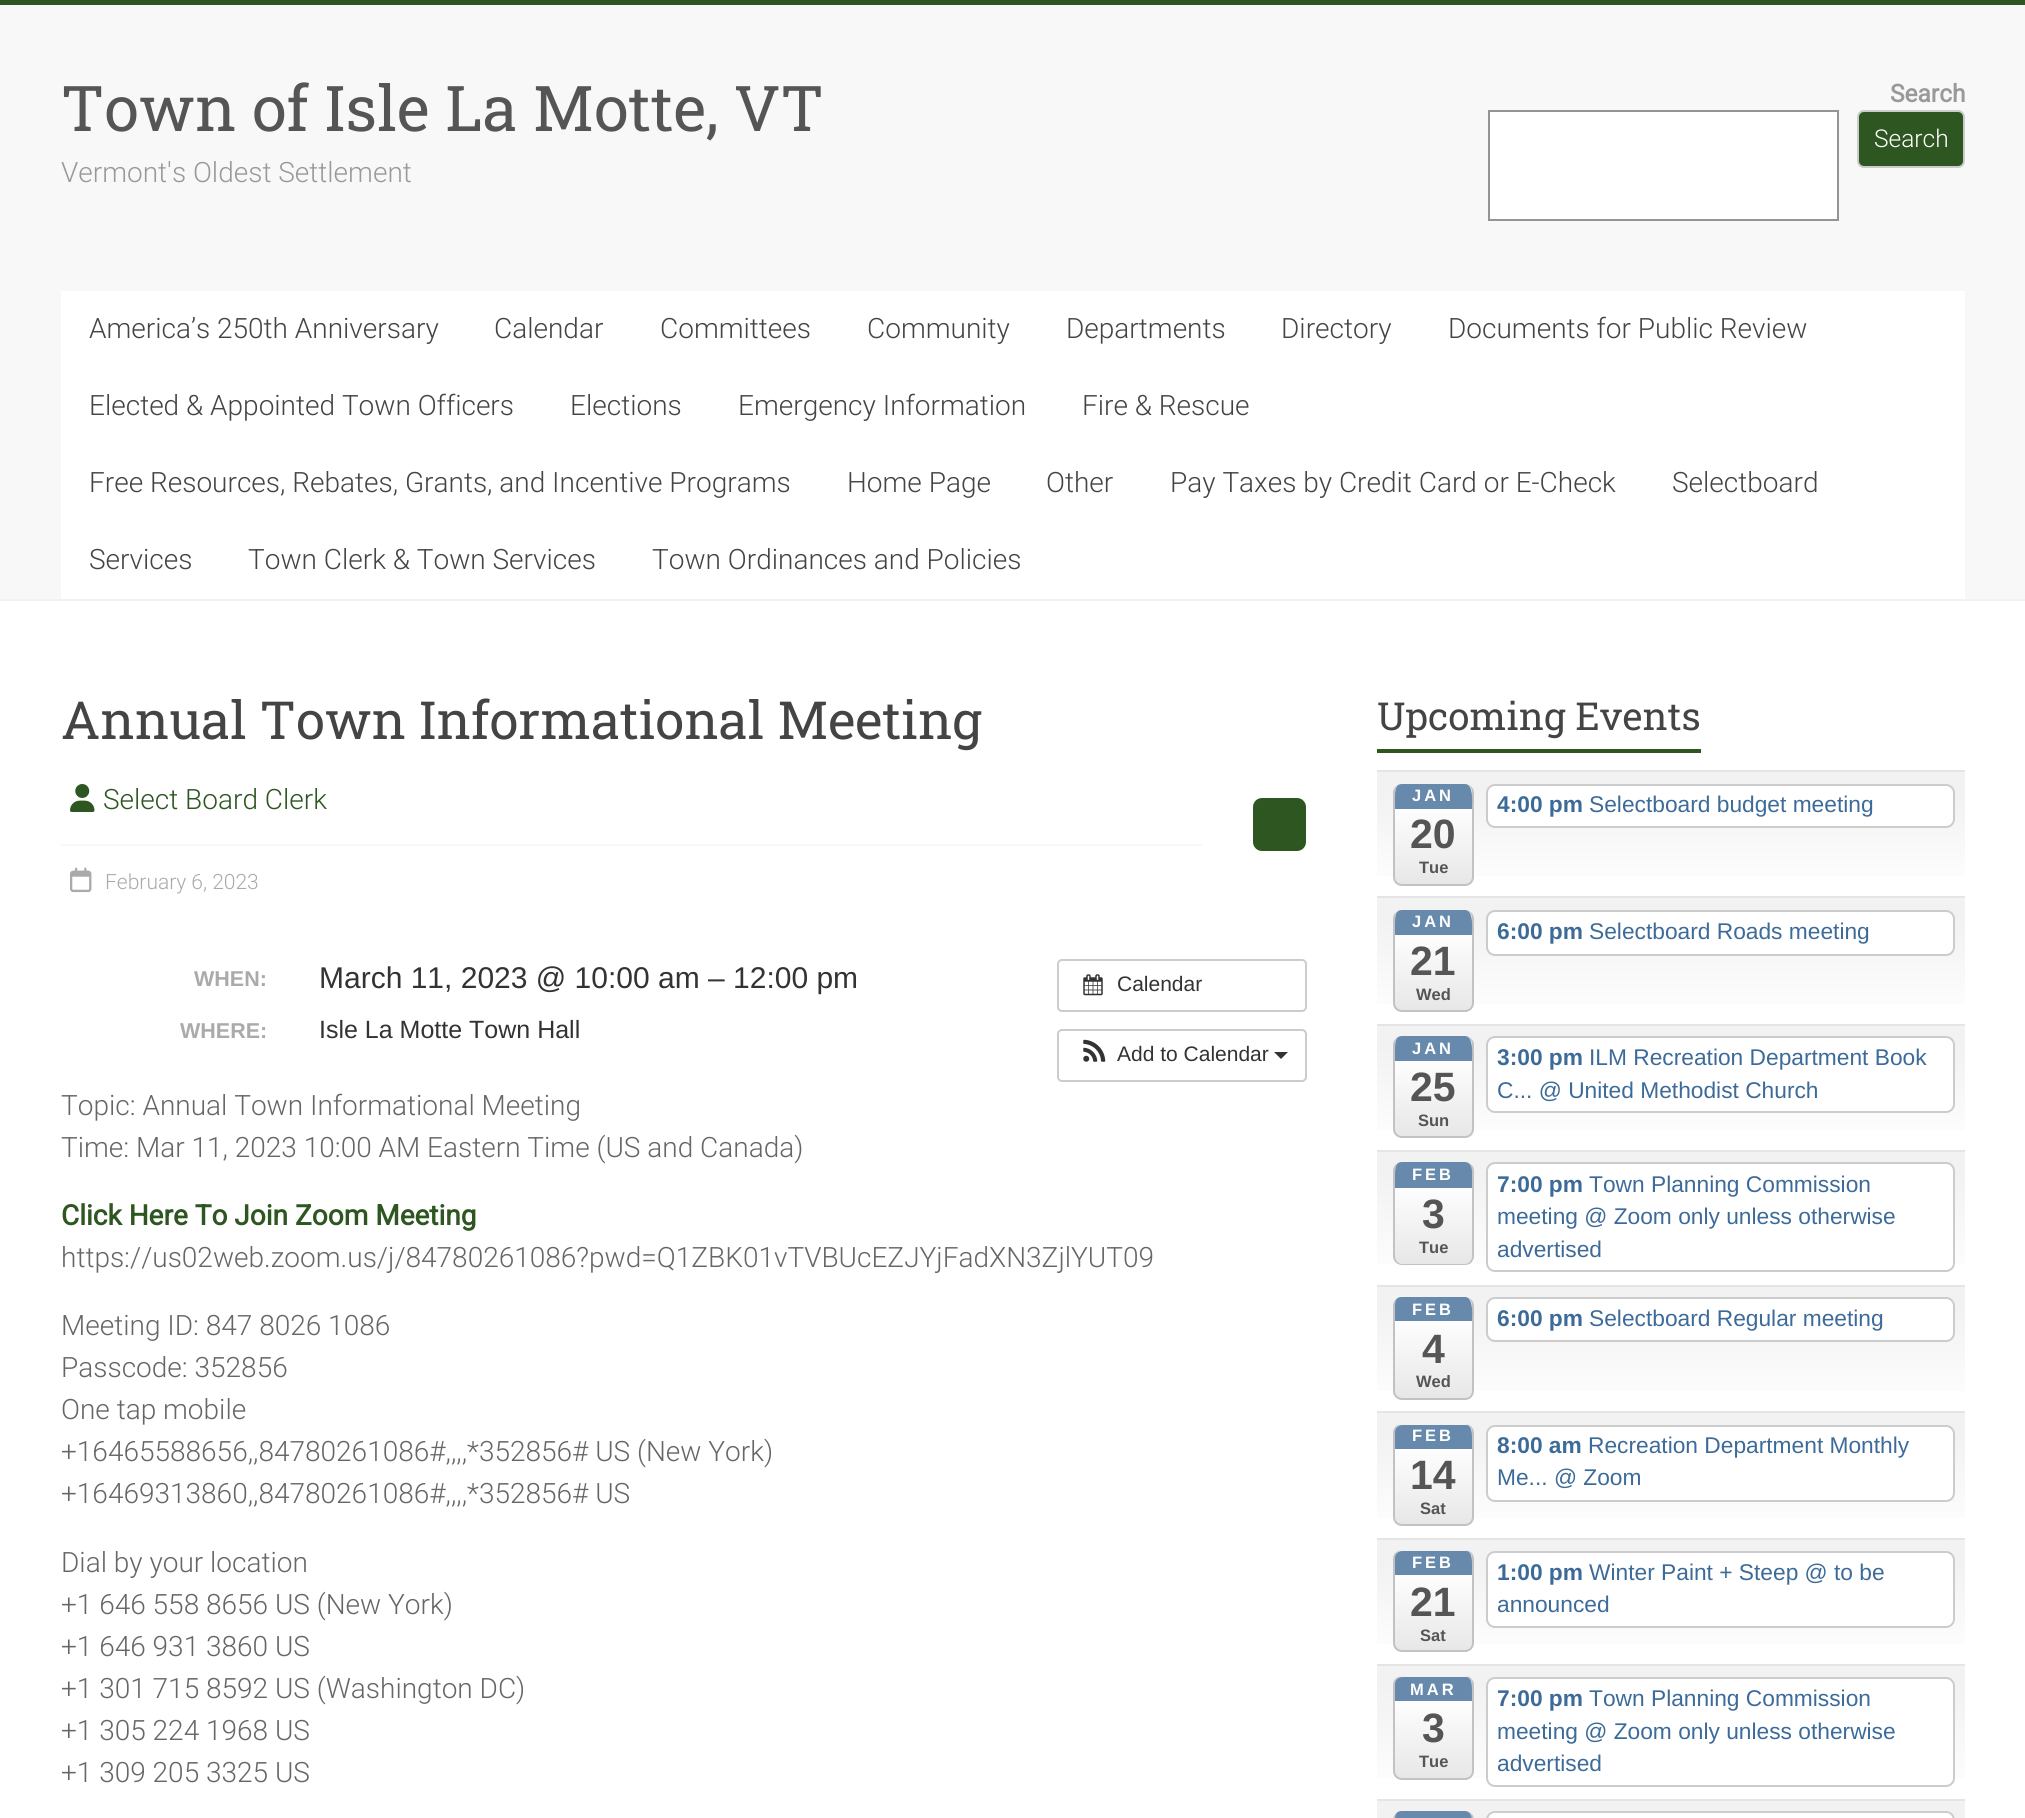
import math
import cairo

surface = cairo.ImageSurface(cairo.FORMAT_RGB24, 2025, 1818)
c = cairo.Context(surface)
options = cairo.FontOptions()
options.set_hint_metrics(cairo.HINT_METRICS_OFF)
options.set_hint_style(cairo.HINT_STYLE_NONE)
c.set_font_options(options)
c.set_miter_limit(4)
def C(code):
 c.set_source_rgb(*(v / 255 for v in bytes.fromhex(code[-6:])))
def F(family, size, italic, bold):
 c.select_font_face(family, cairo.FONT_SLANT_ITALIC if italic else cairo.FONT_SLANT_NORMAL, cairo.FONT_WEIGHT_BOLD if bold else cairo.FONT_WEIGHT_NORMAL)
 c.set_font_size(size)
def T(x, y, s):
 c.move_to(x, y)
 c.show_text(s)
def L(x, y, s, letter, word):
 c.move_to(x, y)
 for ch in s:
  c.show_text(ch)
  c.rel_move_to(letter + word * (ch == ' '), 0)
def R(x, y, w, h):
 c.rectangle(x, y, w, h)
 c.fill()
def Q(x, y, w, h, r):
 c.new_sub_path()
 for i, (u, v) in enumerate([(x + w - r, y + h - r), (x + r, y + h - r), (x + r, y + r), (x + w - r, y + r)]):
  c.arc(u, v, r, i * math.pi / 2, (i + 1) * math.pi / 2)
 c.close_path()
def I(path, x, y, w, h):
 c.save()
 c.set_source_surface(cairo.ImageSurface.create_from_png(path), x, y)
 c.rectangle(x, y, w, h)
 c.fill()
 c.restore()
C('ffffff')
c.paint()
C('2e5621')
R(0,0,2025,5)
C('f8f8f8')
R(0,5,2025,594)
C('f2f2f2')
R(0,599,2025,2)
F('Roboto Slab',63,0,0)
C('555555')
T(61,131,'Town of Isle La Motte, VT')
F('Roboto Light',28,0,0)
C('999999')
T(61,182,'Vermont\'s Oldest Settlement')
F('Roboto',24.5,0,1)
T(1890,102,'Search')
C('ffffff')
c.rectangle(1489,111,349,109)
c.fill_preserve()
C('949494')
c.stroke()
C('2e5621')
Q(1858,111,106,56,6)
c.fill_preserve()
C('cccccc')
c.stroke()
F('Roboto Light',24.5,0,0)
C('ffffff')
T(1874,147,'Search')
R(61,291,1904,308)
F('Roboto Light',28,0,0)
C('444444')
T(89,338,'America’s 250th Anniversary')
T(494,338,'Calendar')
T(660,338,'Committees')
T(867,338,'Community')
T(1066,338,'Departments')
T(1281,338,'Directory')
T(1448,338,'Documents for Public Review')
T(89,415,'Elected & Appointed Town Officers')
T(570,415,'Elections')
T(738,415,'Emergency Information')
T(1082,415,'Fire & Rescue')
T(89,492,'Free Resources, Rebates, Grants, and Incentive Programs')
T(847,492,'Home Page')
T(1046,492,'Other')
T(1170,492,'Pay Taxes by Credit Card or E-Check')
T(1672,492,'Selectboard')
T(89,569,'Services')
T(248,569,'Town Clerk & Town Services')
T(652,569,'Town Ordinances and Policies')
F('Roboto Slab',52.5,0,0)
T(61,739,'Annual Town Informational Meeting')
I('1.png',70,784,25,28)
F('Roboto Light',28,0,0)
C('2e5621')
T(103,809,'Select Board Clerk')
C('f8f8f8')
R(61,844,1141,2)
C('2e5621')
Q(1253,798,53,53,9)
c.fill()
I('2.png',70,867,22,26)
F('Roboto Light',21,0,0)
C('aaaaaa')
T(105,889,'February 6, 2023')
F('Liberation Sans',21.5,0,1)
T(194,986,'WHEN:')
F('Liberation Sans',30,0,0)
C('333333')
T(319,988,'March 11, 2023 @ 10:00 am – 12:00 pm')
F('Liberation Sans',21.5,0,1)
C('aaaaaa')
T(180,1038,'WHERE:')
F('Liberation Sans',25,0,0)
C('333333')
T(319,1038,'Isle La Motte Town Hall')
Q(1058,960,248,51,4)
C('cccccc')
c.stroke()
I('3.png',1083,974,20,22)
F('Liberation Sans',21,0,0)
C('333333')
T(1117,991,'Calendar')
Q(1058,1030,248,51,4)
C('cccccc')
c.stroke()
I('4.png',1083,1039,23,23)
C('333333')
T(1117,1061,'Add to Calendar')
c.new_path()
c.move_to(1274,1052)
c.line_to(1288,1052)
c.line_to(1281,1059)
c.close_path()
c.fill()
F('Roboto Light',28,0,0)
C('666666')
T(61,1115,'Topic: Annual Town Informational Meeting')
T(61,1157,'Time: Mar 11, 2023 10:00 AM Eastern Time (US and Canada)')
F('Roboto',28,0,1)
C('2e5621')
T(61,1225,'Click Here To Join Zoom Meeting')
F('Roboto Light',28,0,0)
C('666666')
T(61,1267,'https://us02web.zoom.us/j/84780261086?pwd=Q1ZBK01vTVBUcEZJYjFadXN3ZjlYUT09')
T(61,1335,'Meeting ID: 847 8026 1086')
T(61,1377,'Passcode: 352856')
T(61,1419,'One tap mobile')
T(61,1461,'+16465588656,,84780261086#,,,,*352856# US (New York)')
T(61,1503,'+16469313860,,84780261086#,,,,*352856# US')
T(61,1572,'Dial by your location')
T(61,1614,'+1 646 558 8656 US (New York)')
T(61,1656,'+1 646 931 3860 US')
T(61,1698,'+1 301 715 8592 US (Washington DC)')
T(61,1740,'+1 305 224 1968 US')
T(61,1782,'+1 309 205 3325 US')
F('Roboto Slab',38.5,0,0)
C('444444')
T(1377,730,'Upcoming Events')
C('2e5621')
R(1377,749,324,4)
gradient = cairo.LinearGradient(1671,772,1671,896)
gradient.add_color_stop_rgba(0,0.949,0.949,0.949,1)
gradient.add_color_stop_rgba(.18,0.949,0.949,0.949,1)
gradient.add_color_stop_rgba(1,1,1,1,1)
c.set_source(gradient)
R(1377,772,588,104)
C('e5e5e5')
R(1377,770,588,2)
c.save()
Q(1393,784,81,102,9)
c.clip()
gradient = cairo.LinearGradient(1433,784,1433,884)
gradient.add_color_stop_rgba(0,1,1,1,1)
gradient.add_color_stop_rgba(.21,1,1,1,1)
gradient.add_color_stop_rgba(1,0.906,0.906,0.906,1)
c.set_source(gradient)
R(1395,784,77,100)
c.restore()
C('c2c2c2')
c.set_fill_rule(cairo.FILL_RULE_EVEN_ODD)
c.new_path()
c.move_to(1402,784)
c.line_to(1465,784)
c.curve_to(1470,784,1474,788,1474,793)
c.line_to(1474,877)
c.curve_to(1474,882,1470,886,1465,886)
c.line_to(1402,886)
c.curve_to(1397,886,1393,882,1393,877)
c.line_to(1393,793)
c.curve_to(1393,788,1397,784,1402,784)
c.close_path()
c.move_to(1402,784)
c.line_to(1465,784)
c.curve_to(1469,784,1472,788,1472,793)
c.line_to(1472,877)
c.curve_to(1472,881,1469,884,1465,884)
c.line_to(1402,884)
c.curve_to(1398,884,1395,881,1395,877)
c.line_to(1395,793)
c.curve_to(1395,788,1398,784,1402,784)
c.close_path()
c.fill()
C('6689ac')
c.set_fill_rule(cairo.FILL_RULE_WINDING)
c.new_path()
c.move_to(1402,784)
c.curve_to(1395,784,1395,792,1395,797)
c.line_to(1395,809)
c.line_to(1472,809)
c.curve_to(1472,803,1474,784,1465,784)
c.close_path()
c.fill()
F('Liberation Sans',16.5,0,1)
C('ffffff')
L(1412,801,'JAN',3,0)
F('Liberation Sans',41,0,1)
C('555555')
T(1410,848,'20')
F('Liberation Sans',16.5,0,1)
T(1419,873,'Tue')
C('ffffff')
Q(1487,785,467,42,8)
c.fill_preserve()
C('cccccc')
c.stroke()
F('Liberation Sans',22.75,0,1)
C('3d6b99')
T(1497,812,'4:00 pm')
F('Liberation Sans',22.75,0,0)
T(1589,812,'Selectboard budget meeting')
gradient = cairo.LinearGradient(1671,898,1671,1024)
gradient.add_color_stop_rgba(0,0.949,0.949,0.949,1)
gradient.add_color_stop_rgba(.18,0.949,0.949,0.949,1)
gradient.add_color_stop_rgba(1,1,1,1,1)
c.set_source(gradient)
R(1377,898,588,106)
C('e5e5e5')
R(1377,896,588,2)
c.save()
Q(1393,910,81,102,9)
c.clip()
gradient = cairo.LinearGradient(1433,910,1433,1010)
gradient.add_color_stop_rgba(0,1,1,1,1)
gradient.add_color_stop_rgba(.21,1,1,1,1)
gradient.add_color_stop_rgba(1,0.906,0.906,0.906,1)
c.set_source(gradient)
R(1395,910,77,100)
c.restore()
C('c2c2c2')
c.set_fill_rule(cairo.FILL_RULE_EVEN_ODD)
c.new_path()
c.move_to(1402,910)
c.line_to(1465,910)
c.curve_to(1470,910,1474,914,1474,919)
c.line_to(1474,1003)
c.curve_to(1474,1008,1470,1012,1465,1012)
c.line_to(1402,1012)
c.curve_to(1397,1012,1393,1008,1393,1003)
c.line_to(1393,919)
c.curve_to(1393,914,1397,910,1402,910)
c.close_path()
c.move_to(1402,910)
c.line_to(1465,910)
c.curve_to(1469,910,1472,914,1472,919)
c.line_to(1472,1003)
c.curve_to(1472,1007,1469,1010,1465,1010)
c.line_to(1402,1010)
c.curve_to(1398,1010,1395,1007,1395,1003)
c.line_to(1395,919)
c.curve_to(1395,914,1398,910,1402,910)
c.close_path()
c.fill()
C('6689ac')
c.set_fill_rule(cairo.FILL_RULE_WINDING)
c.new_path()
c.move_to(1402,910)
c.curve_to(1395,910,1395,918,1395,923)
c.line_to(1395,935)
c.line_to(1472,935)
c.curve_to(1472,929,1474,910,1465,910)
c.close_path()
c.fill()
F('Liberation Sans',16.5,0,1)
C('ffffff')
L(1412,927,'JAN',3,0)
F('Liberation Sans',41,0,1)
C('555555')
T(1410,975,'21')
F('Liberation Sans',16.5,0,1)
T(1416,1000,'Wed')
C('ffffff')
Q(1487,911,467,44,8)
c.fill_preserve()
C('cccccc')
c.stroke()
F('Liberation Sans',22.75,0,1)
C('3d6b99')
T(1497,939,'6:00 pm')
F('Liberation Sans',22.75,0,0)
T(1589,939,'Selectboard Roads meeting')
gradient = cairo.LinearGradient(1671,1026,1671,1150)
gradient.add_color_stop_rgba(0,0.949,0.949,0.949,1)
gradient.add_color_stop_rgba(.18,0.949,0.949,0.949,1)
gradient.add_color_stop_rgba(1,1,1,1,1)
c.set_source(gradient)
R(1377,1026,588,104)
C('e5e5e5')
R(1377,1024,588,2)
c.save()
Q(1393,1036,81,102,9)
c.clip()
gradient = cairo.LinearGradient(1433,1036,1433,1136)
gradient.add_color_stop_rgba(0,1,1,1,1)
gradient.add_color_stop_rgba(.21,1,1,1,1)
gradient.add_color_stop_rgba(1,0.906,0.906,0.906,1)
c.set_source(gradient)
R(1395,1036,77,100)
c.restore()
C('c2c2c2')
c.set_fill_rule(cairo.FILL_RULE_EVEN_ODD)
c.new_path()
c.move_to(1402,1036)
c.line_to(1465,1036)
c.curve_to(1470,1036,1474,1040,1474,1045)
c.line_to(1474,1129)
c.curve_to(1474,1134,1470,1138,1465,1138)
c.line_to(1402,1138)
c.curve_to(1397,1138,1393,1134,1393,1129)
c.line_to(1393,1045)
c.curve_to(1393,1040,1397,1036,1402,1036)
c.close_path()
c.move_to(1402,1036)
c.line_to(1465,1036)
c.curve_to(1469,1036,1472,1040,1472,1045)
c.line_to(1472,1129)
c.curve_to(1472,1133,1469,1136,1465,1136)
c.line_to(1402,1136)
c.curve_to(1398,1136,1395,1133,1395,1129)
c.line_to(1395,1045)
c.curve_to(1395,1040,1398,1036,1402,1036)
c.close_path()
c.fill()
C('6689ac')
c.set_fill_rule(cairo.FILL_RULE_WINDING)
c.new_path()
c.move_to(1402,1036)
c.curve_to(1395,1036,1395,1044,1395,1049)
c.line_to(1395,1061)
c.line_to(1472,1061)
c.curve_to(1472,1055,1474,1036,1465,1036)
c.close_path()
c.fill()
F('Liberation Sans',16.5,0,1)
C('ffffff')
L(1412,1054,'JAN',3,0)
F('Liberation Sans',41,0,1)
C('555555')
T(1410,1101,'25')
F('Liberation Sans',16.5,0,1)
T(1418,1126,'Sun')
C('ffffff')
Q(1487,1037,467,75,8)
c.fill_preserve()
C('cccccc')
c.stroke()
F('Liberation Sans',22.75,0,1)
C('3d6b99')
T(1497,1065,'3:00 pm')
F('Liberation Sans',22.75,0,0)
T(1589,1065,'ILM Recreation Department Book')
T(1497,1098,'C... @ United Methodist Church')
gradient = cairo.LinearGradient(1671,1152,1671,1285)
gradient.add_color_stop_rgba(0,0.949,0.949,0.949,1)
gradient.add_color_stop_rgba(.17,0.949,0.949,0.949,1)
gradient.add_color_stop_rgba(1,1,1,1,1)
c.set_source(gradient)
R(1377,1152,588,112)
C('e5e5e5')
R(1377,1150,588,2)
c.save()
Q(1393,1162,81,103,9)
c.clip()
gradient = cairo.LinearGradient(1433,1162,1433,1264)
gradient.add_color_stop_rgba(0,1,1,1,1)
gradient.add_color_stop_rgba(.2,1,1,1,1)
gradient.add_color_stop_rgba(1,0.906,0.906,0.906,1)
c.set_source(gradient)
R(1395,1162,77,102)
c.restore()
C('c2c2c2')
c.set_fill_rule(cairo.FILL_RULE_EVEN_ODD)
c.new_path()
c.move_to(1402,1162)
c.line_to(1465,1162)
c.curve_to(1470,1162,1474,1166,1474,1171)
c.line_to(1474,1256)
c.curve_to(1474,1261,1470,1265,1465,1265)
c.line_to(1402,1265)
c.curve_to(1397,1265,1393,1261,1393,1256)
c.line_to(1393,1171)
c.curve_to(1393,1166,1397,1162,1402,1162)
c.close_path()
c.move_to(1402,1162)
c.line_to(1465,1162)
c.curve_to(1469,1162,1472,1166,1472,1171)
c.line_to(1472,1256)
c.curve_to(1472,1260,1469,1264,1465,1264)
c.line_to(1402,1264)
c.curve_to(1398,1264,1395,1260,1395,1256)
c.line_to(1395,1171)
c.curve_to(1395,1166,1398,1162,1402,1162)
c.close_path()
c.fill()
C('6689ac')
c.set_fill_rule(cairo.FILL_RULE_WINDING)
c.new_path()
c.move_to(1402,1162)
c.curve_to(1395,1162,1395,1170,1395,1175)
c.line_to(1395,1188)
c.line_to(1472,1188)
c.line_to(1472,1171)
c.curve_to(1472,1166,1469,1162,1465,1162)
c.close_path()
c.fill()
F('Liberation Sans',16.5,0,1)
C('ffffff')
L(1412,1180,'FEB',3,0)
F('Liberation Sans',41,0,1)
C('555555')
T(1422,1228,'3')
F('Liberation Sans',16.5,0,1)
T(1419,1253,'Tue')
C('ffffff')
Q(1487,1163,467,108,8)
c.fill_preserve()
C('cccccc')
c.stroke()
F('Liberation Sans',22.75,0,1)
C('3d6b99')
T(1497,1192,'7:00 pm')
F('Liberation Sans',22.75,0,0)
T(1589,1192,'Town Planning Commission')
T(1497,1224,'meeting @ Zoom only unless otherwise')
T(1497,1257,'advertised')
gradient = cairo.LinearGradient(1671,1286,1671,1411)
gradient.add_color_stop_rgba(0,0.949,0.949,0.949,1)
gradient.add_color_stop_rgba(.18,0.949,0.949,0.949,1)
gradient.add_color_stop_rgba(1,1,1,1,1)
c.set_source(gradient)
R(1377,1287,588,104)
C('e5e5e5')
R(1377,1285,588,2)
c.save()
Q(1393,1297,81,103,9)
c.clip()
gradient = cairo.LinearGradient(1433,1297,1433,1398)
gradient.add_color_stop_rgba(0,1,1,1,1)
gradient.add_color_stop_rgba(.2,1,1,1,1)
gradient.add_color_stop_rgba(1,0.906,0.906,0.906,1)
c.set_source(gradient)
R(1395,1297,77,101)
c.restore()
C('c2c2c2')
c.set_fill_rule(cairo.FILL_RULE_EVEN_ODD)
c.new_path()
c.move_to(1402,1297)
c.line_to(1465,1297)
c.curve_to(1470,1297,1474,1301,1474,1306)
c.line_to(1474,1391)
c.curve_to(1474,1396,1470,1400,1465,1400)
c.line_to(1402,1400)
c.curve_to(1397,1400,1393,1396,1393,1391)
c.line_to(1393,1306)
c.curve_to(1393,1301,1397,1297,1402,1297)
c.close_path()
c.move_to(1402,1297)
c.line_to(1465,1297)
c.curve_to(1469,1297,1472,1301,1472,1306)
c.line_to(1472,1391)
c.curve_to(1472,1395,1469,1398,1465,1398)
c.line_to(1402,1398)
c.curve_to(1398,1398,1395,1395,1395,1391)
c.line_to(1395,1306)
c.curve_to(1395,1301,1398,1297,1402,1297)
c.close_path()
c.fill()
C('6689ac')
c.set_fill_rule(cairo.FILL_RULE_WINDING)
c.new_path()
c.move_to(1402,1297)
c.line_to(1466,1297)
c.curve_to(1474,1299,1472,1316,1472,1321)
c.line_to(1395,1321)
c.line_to(1395,1310)
c.curve_to(1395,1304,1394,1297,1402,1297)
c.close_path()
c.fill()
F('Liberation Sans',16.5,0,1)
C('ffffff')
L(1412,1315,'FEB',3,0)
F('Liberation Sans',41,0,1)
C('555555')
T(1422,1363,'4')
F('Liberation Sans',16.5,0,1)
T(1416,1387,'Wed')
C('ffffff')
Q(1487,1298,467,43,8)
c.fill_preserve()
C('cccccc')
c.stroke()
F('Liberation Sans',22.75,0,1)
C('3d6b99')
T(1497,1326,'6:00 pm')
F('Liberation Sans',22.75,0,0)
T(1589,1326,'Selectboard Regular meeting')
gradient = cairo.LinearGradient(1671,1412,1671,1538)
gradient.add_color_stop_rgba(0,0.949,0.949,0.949,1)
gradient.add_color_stop_rgba(.18,0.949,0.949,0.949,1)
gradient.add_color_stop_rgba(1,1,1,1,1)
c.set_source(gradient)
R(1377,1413,588,105)
C('e5e5e5')
R(1377,1411,588,2)
c.save()
Q(1393,1425,81,101,9)
c.clip()
gradient = cairo.LinearGradient(1433,1425,1433,1524)
gradient.add_color_stop_rgba(0,1,1,1,1)
gradient.add_color_stop_rgba(.21,1,1,1,1)
gradient.add_color_stop_rgba(1,0.906,0.906,0.906,1)
c.set_source(gradient)
R(1395,1425,77,99)
c.restore()
C('c2c2c2')
c.set_fill_rule(cairo.FILL_RULE_EVEN_ODD)
c.new_path()
c.move_to(1402,1424)
c.line_to(1465,1424)
c.curve_to(1470,1424,1474,1428,1474,1433)
c.line_to(1474,1517)
c.curve_to(1474,1522,1470,1526,1465,1526)
c.line_to(1402,1526)
c.curve_to(1397,1526,1393,1522,1393,1517)
c.line_to(1393,1433)
c.curve_to(1393,1428,1397,1424,1402,1424)
c.close_path()
c.move_to(1402,1424)
c.line_to(1465,1424)
c.curve_to(1469,1424,1472,1428,1472,1433)
c.line_to(1472,1517)
c.curve_to(1472,1521,1469,1524,1465,1524)
c.line_to(1402,1524)
c.curve_to(1398,1524,1395,1521,1395,1517)
c.line_to(1395,1433)
c.curve_to(1395,1428,1398,1424,1402,1424)
c.close_path()
c.fill()
C('6689ac')
c.set_fill_rule(cairo.FILL_RULE_WINDING)
c.new_path()
c.move_to(1402,1425)
c.line_to(1467,1425)
c.curve_to(1472,1426,1472,1434,1472,1438)
c.line_to(1472,1449)
c.line_to(1395,1449)
c.line_to(1395,1432)
c.curve_to(1395,1428,1398,1425,1402,1425)
c.close_path()
c.fill()
F('Liberation Sans',16.5,0,1)
C('ffffff')
L(1412,1441,'FEB',3,0)
F('Liberation Sans',41,0,1)
C('555555')
T(1410,1489,'14')
F('Liberation Sans',16.5,0,1)
T(1420,1514,'Sat')
C('ffffff')
Q(1487,1426,467,75,8)
c.fill_preserve()
C('cccccc')
c.stroke()
F('Liberation Sans',22.75,0,1)
C('3d6b99')
T(1497,1453,'8:00 am')
F('Liberation Sans',22.75,0,0)
T(1588,1453,'Recreation Department Monthly')
T(1497,1485,'Me... @ Zoom')
gradient = cairo.LinearGradient(1671,1540,1671,1664)
gradient.add_color_stop_rgba(0,0.949,0.949,0.949,1)
gradient.add_color_stop_rgba(.18,0.949,0.949,0.949,1)
gradient.add_color_stop_rgba(1,1,1,1,1)
c.set_source(gradient)
R(1377,1540,588,104)
C('e5e5e5')
R(1377,1538,588,2)
c.save()
Q(1393,1551,81,101,9)
c.clip()
gradient = cairo.LinearGradient(1433,1551,1433,1650)
gradient.add_color_stop_rgba(0,1,1,1,1)
gradient.add_color_stop_rgba(.21,1,1,1,1)
gradient.add_color_stop_rgba(1,0.906,0.906,0.906,1)
c.set_source(gradient)
R(1395,1551,77,99)
c.restore()
C('c2c2c2')
c.set_fill_rule(cairo.FILL_RULE_EVEN_ODD)
c.new_path()
c.move_to(1402,1550)
c.line_to(1465,1550)
c.curve_to(1470,1550,1474,1554,1474,1559)
c.line_to(1474,1643)
c.curve_to(1474,1648,1470,1652,1465,1652)
c.line_to(1402,1652)
c.curve_to(1397,1652,1393,1648,1393,1643)
c.line_to(1393,1559)
c.curve_to(1393,1554,1397,1550,1402,1550)
c.close_path()
c.move_to(1402,1550)
c.line_to(1465,1550)
c.curve_to(1469,1550,1472,1554,1472,1559)
c.line_to(1472,1643)
c.curve_to(1472,1647,1469,1650,1465,1650)
c.line_to(1402,1650)
c.curve_to(1398,1650,1395,1647,1395,1643)
c.line_to(1395,1559)
c.curve_to(1395,1554,1398,1550,1402,1550)
c.close_path()
c.fill()
C('6689ac')
c.set_fill_rule(cairo.FILL_RULE_WINDING)
c.new_path()
c.move_to(1402,1551)
c.line_to(1467,1551)
c.curve_to(1472,1552,1472,1560,1472,1564)
c.line_to(1472,1575)
c.line_to(1395,1575)
c.line_to(1395,1558)
c.curve_to(1395,1554,1398,1551,1402,1551)
c.close_path()
c.fill()
F('Liberation Sans',16.5,0,1)
C('ffffff')
L(1412,1568,'FEB',3,0)
F('Liberation Sans',41,0,1)
C('555555')
T(1410,1616,'21')
F('Liberation Sans',16.5,0,1)
T(1420,1641,'Sat')
C('ffffff')
Q(1487,1552,467,75,8)
c.fill_preserve()
C('cccccc')
c.stroke()
F('Liberation Sans',22.75,0,1)
C('3d6b99')
T(1497,1580,'1:00 pm')
F('Liberation Sans',22.75,0,0)
T(1589,1580,'Winter Paint + Steep @ to be')
T(1497,1612,'announced')
gradient = cairo.LinearGradient(1671,1666,1671,1799)
gradient.add_color_stop_rgba(0,0.949,0.949,0.949,1)
gradient.add_color_stop_rgba(.17,0.949,0.949,0.949,1)
gradient.add_color_stop_rgba(1,1,1,1,1)
c.set_source(gradient)
R(1377,1666,588,112)
C('e5e5e5')
R(1377,1664,588,2)
c.save()
Q(1393,1677,81,103,9)
c.clip()
gradient = cairo.LinearGradient(1433,1677,1433,1778)
gradient.add_color_stop_rgba(0,1,1,1,1)
gradient.add_color_stop_rgba(.2,1,1,1,1)
gradient.add_color_stop_rgba(1,0.906,0.906,0.906,1)
c.set_source(gradient)
R(1395,1677,77,101)
c.restore()
C('c2c2c2')
c.set_fill_rule(cairo.FILL_RULE_EVEN_ODD)
c.new_path()
c.move_to(1402,1676)
c.line_to(1465,1676)
c.curve_to(1470,1676,1474,1680,1474,1685)
c.line_to(1474,1771)
c.curve_to(1474,1776,1470,1780,1465,1780)
c.line_to(1402,1780)
c.curve_to(1397,1780,1393,1776,1393,1771)
c.line_to(1393,1685)
c.curve_to(1393,1680,1397,1676,1402,1676)
c.close_path()
c.move_to(1402,1676)
c.line_to(1465,1676)
c.curve_to(1469,1676,1472,1680,1472,1685)
c.line_to(1472,1771)
c.curve_to(1472,1775,1469,1778,1465,1778)
c.line_to(1402,1778)
c.curve_to(1398,1778,1395,1775,1395,1771)
c.line_to(1395,1685)
c.curve_to(1395,1680,1398,1676,1402,1676)
c.close_path()
c.fill()
C('6689ac')
c.set_fill_rule(cairo.FILL_RULE_WINDING)
c.new_path()
c.move_to(1402,1677)
c.line_to(1467,1677)
c.curve_to(1472,1678,1472,1686,1472,1690)
c.line_to(1472,1701)
c.line_to(1395,1701)
c.line_to(1395,1684)
c.curve_to(1395,1680,1398,1677,1402,1677)
c.close_path()
c.fill()
F('Liberation Sans',16.5,0,1)
C('ffffff')
L(1410,1695,'MAR',3,0)
F('Liberation Sans',41,0,1)
C('555555')
T(1422,1742,'3')
F('Liberation Sans',16.5,0,1)
T(1419,1767,'Tue')
C('ffffff')
Q(1487,1678,467,108,8)
c.fill_preserve()
C('cccccc')
c.stroke()
F('Liberation Sans',22.75,0,1)
C('3d6b99')
T(1497,1706,'7:00 pm')
F('Liberation Sans',22.75,0,0)
T(1589,1706,'Town Planning Commission')
T(1497,1739,'meeting @ Zoom only unless otherwise')
T(1497,1771,'advertised')
gradient = cairo.LinearGradient(1671,1801,1671,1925)
gradient.add_color_stop_rgba(0,0.949,0.949,0.949,1)
gradient.add_color_stop_rgba(.18,0.949,0.949,0.949,1)
gradient.add_color_stop_rgba(1,1,1,1,1)
c.set_source(gradient)
R(1377,1801,588,17)
C('e5e5e5')
R(1377,1799,588,2)
C('c2c2c2')
c.set_fill_rule(cairo.FILL_RULE_EVEN_ODD)
c.new_path()
c.move_to(1402,1811)
c.line_to(1465,1811)
c.curve_to(1470,1811,1474,1815,1474,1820)
c.line_to(1474,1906)
c.curve_to(1474,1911,1470,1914,1465,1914)
c.line_to(1402,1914)
c.curve_to(1397,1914,1393,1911,1393,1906)
c.line_to(1393,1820)
c.curve_to(1393,1815,1397,1811,1402,1811)
c.close_path()
c.move_to(1402,1811)
c.line_to(1465,1811)
c.curve_to(1469,1811,1472,1815,1472,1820)
c.line_to(1472,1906)
c.curve_to(1472,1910,1469,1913,1465,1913)
c.line_to(1402,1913)
c.curve_to(1398,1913,1395,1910,1395,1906)
c.line_to(1395,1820)
c.curve_to(1395,1815,1398,1811,1402,1811)
c.close_path()
c.fill()
C('6689ac')
c.set_fill_rule(cairo.FILL_RULE_WINDING)
c.new_path()
c.move_to(1402,1811)
c.line_to(1465,1811)
c.curve_to(1469,1811,1472,1815,1472,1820)
c.line_to(1472,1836)
c.line_to(1395,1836)
c.line_to(1395,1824)
c.curve_to(1395,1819,1394,1811,1402,1811)
c.close_path()
c.fill()
C('ffffff')
Q(1487,1812,467,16,8)
c.fill_preserve()
C('cccccc')
c.stroke()
surface.write_to_png('o.png')
